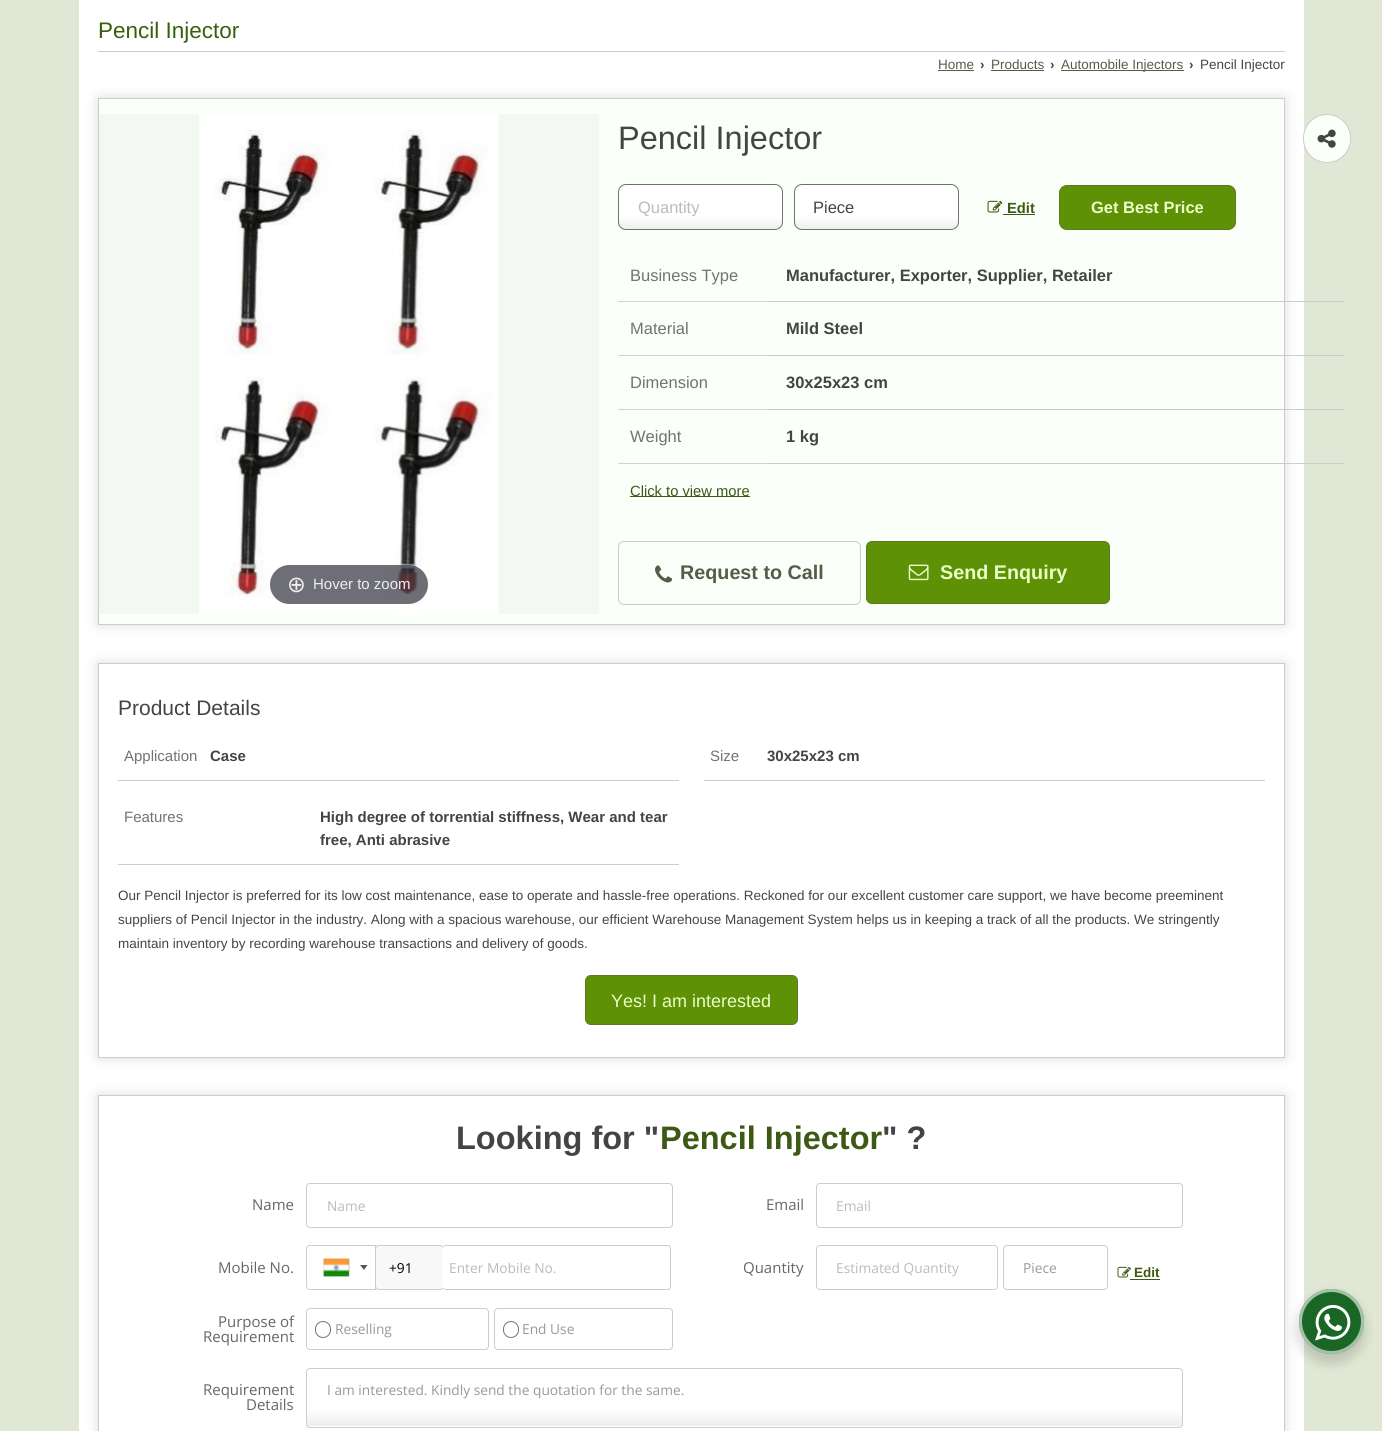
import math
import cairo

surface = cairo.ImageSurface(cairo.FORMAT_RGB24, 1382, 1431)
c = cairo.Context(surface)
options = cairo.FontOptions()
options.set_hint_metrics(cairo.HINT_METRICS_OFF)
options.set_hint_style(cairo.HINT_STYLE_NONE)
c.set_font_options(options)
c.set_miter_limit(4)
def C(code):
 c.set_source_rgb(*(v / 255 for v in bytes.fromhex(code[-6:])))
def F(family, size, italic, bold):
 c.select_font_face(family, cairo.FONT_SLANT_ITALIC if italic else cairo.FONT_SLANT_NORMAL, cairo.FONT_WEIGHT_BOLD if bold else cairo.FONT_WEIGHT_NORMAL)
 c.set_font_size(size)
def T(x, y, s):
 c.move_to(x, y)
 c.show_text(s)
def R(x, y, w, h):
 c.rectangle(x, y, w, h)
 c.fill()
def Q(x, y, w, h, r):
 c.new_sub_path()
 for i, (u, v) in enumerate([(x + w - r, y + h - r), (x + r, y + h - r), (x + r, y + r), (x + w - r, y + r)]):
  c.arc(u, v, r, i * math.pi / 2, (i + 1) * math.pi / 2)
 c.close_path()
def S(x, y, w, h, r, blur, alpha):
 c.push_group_with_content(cairo.CONTENT_ALPHA)
 c.set_operator(cairo.OPERATOR_SOURCE)
 for i in range(15, -16, -2):
  e = blur * i / 6
  if min(w, h) + 2 * e > 0:
   c.set_source_rgba(0, 0, 0, alpha * math.erfc((i - 1) / 8.5) / 2)
   Q(x - e, y - e, w + 2 * e, h + 2 * e, max(0, min(r + e + blur * .6, min(w, h) / 2 + e)))
   c.fill()
 c.mask(c.pop_group())
def I(path, x, y, w, h):
 c.save()
 c.set_source_surface(cairo.ImageSurface.create_from_png(path), x, y)
 c.rectangle(x, y, w, h)
 c.fill()
 c.restore()
C('e0e7d4')
c.paint()
C('ffffff')
R(79,0,1225,1431)
C('cccccc')
R(98,51,1187,1)
F('Liberation Sans',22.5,0,0)
C('37600d')
T(98,38,'Pencil Injector')
F('Liberation Sans',13.5,0,0)
C('555c4a')
T(938,69,'Home')
R(938,70,36,1)
F('Liberation Sans',13.5,0,1)
C('444444')
T(980,69,'›')
F('Liberation Sans',13.5,0,0)
C('555c4a')
T(991,69,'Products')
R(991,70,53,1)
F('Liberation Sans',13.5,0,1)
C('444444')
T(1050,69,'›')
C('555c4a')
R(1061,70,123,1)
F('Liberation Sans',13.5,0,0)
T(1061,69,'Automobile Injectors')
F('Liberation Sans',13.5,0,1)
C('444444')
T(1189,69,'›')
F('Liberation Sans',13.5,0,0)
T(1200,69,'Pencil Injector')
C('cccccc')
S(98,98,1187,527,0,6,.67)
C('fbfffa')
c.rectangle(98.5,98.5,1186,526)
c.fill_preserve()
C('cccccc')
c.set_line_width(1)
c.stroke()
C('f4f8f2')
R(99,114,500,500)
I('1.png',199,114,300,500)
c.set_source_rgba(0.192,0.2,0.239,0.7)
Q(270,565,158,39,19.5)
c.fill()
F('DejaVu Sans',22.5,0,0)
C('eeeeee')
T(287,592,'⊕')
F('Liberation Sans',15,0,0)
T(313,589,'Hover to zoom')
F('Liberation Sans',32.5,0,0)
C('444444')
T(618,149,'Pencil Injector')
C('fbfffa')
Q(1303.5,114.5,47,48,23.5)
c.fill_preserve()
C('cccccc')
c.stroke()
I('2.png',1317,129,19,19)
c.save()
Q(618,184,165,46,8)
c.clip()
gradient = cairo.LinearGradient(700,185,700,229)
gradient.add_color_stop_rgba(.7,1,1,1,1)
gradient.add_color_stop_rgba(1,0.933,0.933,0.933,1)
c.set_source(gradient)
R(618,185,165,44)
c.restore()
Q(618.5,184.5,164,45,7.5)
C('717171')
c.stroke()
c.save()
c.rectangle(638,198,125,18)
c.clip()
F('Liberation Sans',16.5,0,0)
C('bbbbbb')
T(638,213,'Quantity')
c.restore()
c.save()
Q(794,184,165,46,8)
c.clip()
gradient = cairo.LinearGradient(876,185,876,229)
gradient.add_color_stop_rgba(.7,1,1,1,1)
gradient.add_color_stop_rgba(1,0.933,0.933,0.933,1)
c.set_source(gradient)
R(794,185,165,44)
c.restore()
Q(794.5,184.5,164,45,7.5)
c.stroke()
F('Liberation Sans',16.5,0,0)
C('444444')
T(813,213,'Piece')
I('3.png',987,200,16,13)
F('Liberation Sans',14.75,0,1)
C('3e5913')
T(1007,213,'Edit')
R(1003,214,32,1)
C('5e9105')
Q(1059.5,185.5,176,44,7.5)
c.fill_preserve()
C('5a7c1e')
c.stroke()
F('Liberation Sans',16.5,0,1)
C('eaffc6')
T(1091,213,'Get Best Price')
C('cccccc')
R(768,301,576,1)
c.set_source_rgba(0,0,0,0.1)
R(618,301,150,1)
c.set_source_rgba(0.8,0.8,0.8,0.75)
R(618,301,151,1)
F('Liberation Sans',16.5,0,0)
C('727372')
T(630,281,'Business Type')
F('Liberation Sans',16.5,0,1)
C('444444')
T(786,281,'Manufacturer, Exporter, Supplier, Retailer')
C('cccccc')
R(768,355,576,1)
c.set_source_rgba(0,0,0,0.1)
R(618,355,150,1)
c.set_source_rgba(0.8,0.8,0.8,0.75)
R(618,355,151,1)
F('Liberation Sans',16.5,0,0)
C('727372')
T(630,334,'Material')
F('Liberation Sans',16.5,0,1)
C('444444')
T(786,334,'Mild Steel')
C('cccccc')
R(768,409,576,1)
c.set_source_rgba(0,0,0,0.1)
R(618,409,150,1)
c.set_source_rgba(0.8,0.8,0.8,0.75)
R(618,409,151,1)
F('Liberation Sans',16.5,0,0)
C('727372')
T(630,388,'Dimension')
F('Liberation Sans',16.5,0,1)
C('444444')
T(786,388,'30x25x23 cm')
C('cccccc')
R(768,463,576,1)
c.set_source_rgba(0,0,0,0.1)
R(618,463,150,1)
c.set_source_rgba(0.8,0.8,0.8,0.75)
R(618,463,151,1)
F('Liberation Sans',16.5,0,0)
C('727372')
T(630,442,'Weight')
F('Liberation Sans',16.5,0,1)
C('444444')
T(786,442,'1 kg')
C('3e5913')
R(630,496,120,1)
F('Liberation Sans',14.75,0,0)
T(630,496,'Click to view more')
Q(618.5,541.5,242,63,5.5)
C('cccccc')
c.stroke()
I('4.png',655,565,18,18)
F('Liberation Sans',19.75,0,1)
C('555c4a')
T(680,579,'Request to Call')
C('5e9105')
Q(866.5,541.5,243,62,5.5)
c.fill_preserve()
C('5a7c1e')
c.stroke()
I('5.png',908,564,21,17)
C('eaffc6')
T(940,579,'Send Enquiry')
c.save()
c.set_fill_rule(cairo.FILL_RULE_EVEN_ODD)
c.new_path()
c.move_to(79,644)
c.line_to(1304,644)
c.line_to(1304,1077)
c.line_to(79,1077)
c.close_path()
c.move_to(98,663)
c.line_to(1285,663)
c.line_to(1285,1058)
c.line_to(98,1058)
c.close_path()
c.clip()
C('cccccc')
S(98,663,1187,395,0,6,.67)
c.restore()
c.rectangle(98.5,663.5,1186,394)
C('cccccc')
c.stroke()
F('Liberation Sans',21,0,0)
C('444444')
T(118,715,'Product Details')
C('cccccc')
R(118,780,561,1)
F('Liberation Sans',15,0,0)
C('727372')
T(124,761,'Application')
F('Liberation Sans',15,0,1)
C('444444')
T(210,761,'Case')
C('cccccc')
R(704,780,561,1)
F('Liberation Sans',15,0,0)
C('727372')
T(710,761,'Size')
F('Liberation Sans',15,0,1)
C('444444')
T(767,761,'30x25x23 cm')
C('cccccc')
R(118,864,561,1)
F('Liberation Sans',15,0,0)
C('727372')
T(124,822,'Features')
F('Liberation Sans',15,0,1)
C('444444')
T(320,822,'High degree of torrential stiffness, Wear and tear')
T(320,845,'free, Anti abrasive')
F('Liberation Sans',13.5,0,0)
T(118,900,'Our Pencil Injector is preferred for its low cost maintenance, ease to operate and hassle-free operations. Reckoned for our excellent customer care support, we have become preeminent')
T(118,924,'suppliers of Pencil Injector in the industry. Along with a spacious warehouse, our efficient Warehouse Management System helps us in keeping a track of all the products. We stringently')
T(118,948,'maintain inventory by recording warehouse transactions and delivery of goods.')
C('5e9105')
Q(585.5,975.5,212,49,5.5)
c.fill_preserve()
C('5a7c1e')
c.stroke()
F('Liberation Sans',18,0,0)
C('eaffc6')
T(611,1007,'Yes! I am interested')
c.save()
c.set_fill_rule(cairo.FILL_RULE_EVEN_ODD)
c.new_path()
c.move_to(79,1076)
c.line_to(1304,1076)
c.line_to(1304,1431)
c.line_to(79,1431)
c.close_path()
c.move_to(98,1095)
c.line_to(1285,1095)
c.line_to(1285,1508)
c.line_to(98,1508)
c.close_path()
c.clip()
C('cccccc')
S(98,1095,1187,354,0,6,.67)
c.restore()
c.rectangle(98.5,1095.5,1186,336)
C('cccccc')
c.stroke()
F('Liberation Sans',32.5,0,1)
C('444444')
T(456,1149,'Looking for "')
C('3e5913')
T(660,1149,'Pencil Injector')
C('444444')
T(882,1149,'" ?')
F('Open Sans',15,0,0)
C('666666')
T(252,1210,'Name')
Q(306.5,1183.5,366,44,3.5)
C('cccccc')
c.stroke()
F('Open Sans',13.75,0,0)
C('bbbbbb')
T(327,1211,'Name')
F('Open Sans',15,0,0)
C('666666')
T(766,1210,'Email')
Q(816.5,1183.5,366,44,3.5)
C('cccccc')
c.stroke()
F('Open Sans',13.75,0,0)
C('bbbbbb')
T(836,1211,'Email')
F('Open Sans',15,0,0)
C('666666')
T(218,1273,'Mobile No.')
c.new_path()
c.move_to(310,1245.5)
c.line_to(375.5,1245.5)
c.line_to(375.5,1289.5)
c.line_to(310,1289.5)
c.curve_to(308,1289.5,306.5,1288,306.5,1286)
c.line_to(306.5,1249)
c.curve_to(306.5,1247,308,1245.5,310,1245.5)
c.close_path()
C('cccccc')
c.stroke()
C('888888')
S(324,1259,25,17,0,.5,1)
I('6.png',323,1258,26,19)
C('555555')
c.new_path()
c.move_to(360,1265)
c.line_to(367.5,1265)
c.line_to(364,1270)
c.close_path()
c.fill()
C('f8f8f8')
Q(375.5,1245.5,68,44,3.5)
c.fill_preserve()
C('cccccc')
c.stroke()
F('Open Sans',13.75,0,0)
C('000000')
T(389,1273,'+91')
C('ffffff')
c.new_path()
c.move_to(446,1246)
c.line_to(668,1246)
c.curve_to(669,1246,670,1247,670,1249)
c.line_to(670,1286)
c.curve_to(670,1288,669,1289,668,1289)
c.line_to(446,1289)
c.curve_to(444,1289,442,1288,442,1286)
c.line_to(442,1249)
c.curve_to(442,1247,444,1246,446,1246)
c.close_path()
c.fill()
C('cccccc')
c.set_fill_rule(cairo.FILL_RULE_EVEN_ODD)
c.new_path()
c.move_to(446,1245)
c.line_to(668,1245)
c.curve_to(670,1245,671,1247,671,1249)
c.line_to(671,1286)
c.curve_to(671,1288,670,1290,668,1290)
c.line_to(446,1290)
c.curve_to(444,1290,442,1288,442,1286)
c.line_to(442,1249)
c.curve_to(442,1247,444,1245,446,1245)
c.close_path()
c.move_to(446,1246)
c.line_to(668,1246)
c.curve_to(669,1246,670,1247,670,1249)
c.line_to(670,1286)
c.curve_to(670,1288,669,1289,668,1289)
c.line_to(446,1289)
c.curve_to(444,1289,442,1288,442,1286)
c.line_to(442,1249)
c.curve_to(442,1247,444,1246,446,1246)
c.close_path()
c.fill()
C('bbbbbb')
T(449,1273,'Enter Mobile No.')
F('Open Sans',15,0,0)
C('666666')
T(743,1273,'Quantity')
Q(816.5,1245.5,181,44,3.5)
C('cccccc')
c.stroke()
F('Open Sans',13.75,0,0)
C('bbbbbb')
T(836,1273,'Estimated Quantity')
Q(1003.5,1245.5,104,44,3.5)
C('cccccc')
c.stroke()
C('999999')
T(1023,1273,'Piece')
I('7.png',1117,1266,14,12)
F('Liberation Sans',13.5,0,1)
C('3e5913')
T(1134,1277,'Edit')
R(1130,1279,30,1)
F('Open Sans',15,0,0)
C('666666')
T(218,1327,'Purpose of')
T(203,1342,'Requirement')
Q(306.5,1308.5,182,41,3.5)
C('cccccc')
c.stroke()
Q(315.5,1321.5,15,16,7.5)
C('767676')
c.stroke()
F('Open Sans',13.75,0,0)
C('999999')
T(335,1334,'Reselling')
Q(494.5,1308.5,178,41,3.5)
C('cccccc')
c.stroke()
Q(503.5,1321.5,15,16,7.5)
C('767676')
c.stroke()
C('999999')
T(522,1334,'End Use')
F('Open Sans',15,0,0)
C('666666')
T(203,1395,'Requirement')
T(246,1410,'Details')
c.save()
c.set_fill_rule(cairo.FILL_RULE_WINDING)
Q(306,1368,877,60,4)
c.clip()
gradient = cairo.LinearGradient(744,1369,744,1426)
gradient.add_color_stop_rgba(.7,1,1,1,1)
gradient.add_color_stop_rgba(1,0.933,0.933,0.933,1)
c.set_source(gradient)
R(306,1369,877,57)
c.restore()
Q(306.5,1368.5,876,59,3.5)
C('cccccc')
c.stroke()
F('Open Sans',13.75,0,0)
C('999999')
T(327,1395,'I am interested. Kindly send the quotation for the same.')
C('000000')
S(1296,1294,70,70,35,5,.14)
C('196626')
c.arc(1331.5,1321.5,32.5,0,2 * math.pi)
c.fill()
c.arc(1331.5,1321.5,31,0,2 * math.pi)
c.set_source_rgba(1,1,1,0.6)
c.set_line_width(3)
c.stroke()
I('8.png',1315,1305,36,36)
surface.write_to_png('o.png')
